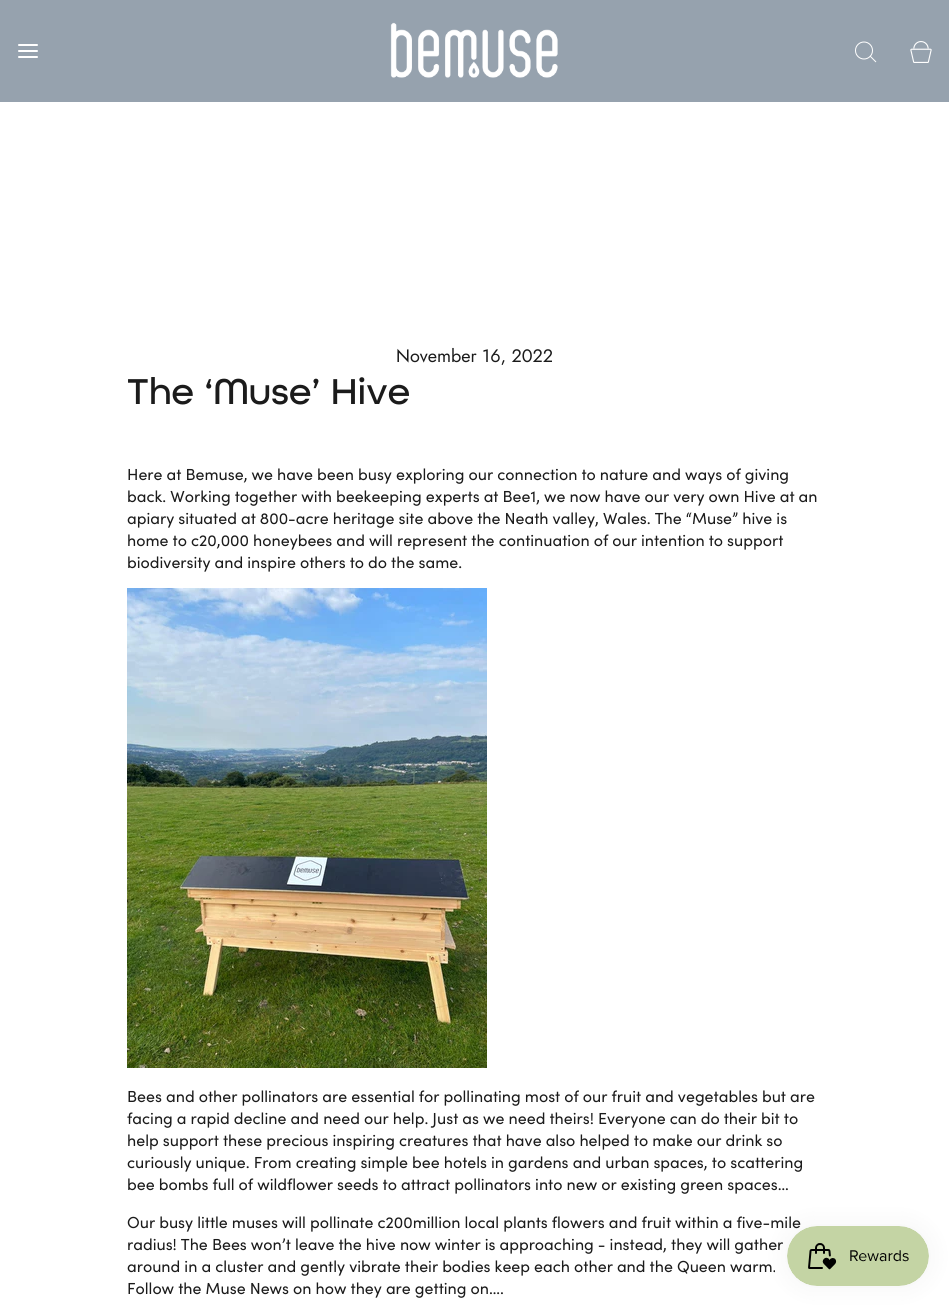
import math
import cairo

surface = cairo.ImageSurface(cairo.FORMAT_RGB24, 949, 1306)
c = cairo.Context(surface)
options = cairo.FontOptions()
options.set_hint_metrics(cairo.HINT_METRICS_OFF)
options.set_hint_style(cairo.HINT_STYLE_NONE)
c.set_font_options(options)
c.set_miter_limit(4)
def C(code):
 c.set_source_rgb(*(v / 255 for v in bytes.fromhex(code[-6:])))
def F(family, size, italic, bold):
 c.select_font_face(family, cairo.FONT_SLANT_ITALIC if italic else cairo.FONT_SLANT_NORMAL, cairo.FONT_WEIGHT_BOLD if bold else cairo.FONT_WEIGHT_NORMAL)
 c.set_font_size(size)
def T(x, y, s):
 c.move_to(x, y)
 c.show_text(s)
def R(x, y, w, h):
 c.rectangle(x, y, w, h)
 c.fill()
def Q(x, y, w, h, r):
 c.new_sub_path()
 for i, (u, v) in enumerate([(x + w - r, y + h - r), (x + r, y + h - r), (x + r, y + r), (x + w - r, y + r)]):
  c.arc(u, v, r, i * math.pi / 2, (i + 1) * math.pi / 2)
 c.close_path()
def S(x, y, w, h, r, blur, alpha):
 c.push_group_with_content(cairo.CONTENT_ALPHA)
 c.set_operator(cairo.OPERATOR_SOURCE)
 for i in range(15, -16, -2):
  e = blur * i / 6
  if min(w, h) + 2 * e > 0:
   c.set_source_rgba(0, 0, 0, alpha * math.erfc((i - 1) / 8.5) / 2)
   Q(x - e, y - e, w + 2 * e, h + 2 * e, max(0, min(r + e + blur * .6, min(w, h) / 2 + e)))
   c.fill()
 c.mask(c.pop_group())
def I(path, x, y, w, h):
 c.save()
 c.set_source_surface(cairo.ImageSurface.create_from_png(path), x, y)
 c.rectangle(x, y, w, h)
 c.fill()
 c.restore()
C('ffffff')
c.paint()
C('96a2ae')
R(0,0,949,102)
c.new_path()
c.move_to(19,51)
c.line_to(37,51)
c.move_to(19,45)
c.line_to(37,45)
c.move_to(19,57)
c.line_to(37,57)
C('ffffff')
c.set_line_cap(cairo.LINE_CAP_ROUND)
c.set_line_join(cairo.LINE_JOIN_ROUND)
c.stroke()
I('1.png',390,22,168,56)
c.arc(864,50.5,8.5,0,2 * math.pi)
c.set_line_width(1)
c.set_line_cap(cairo.LINE_CAP_BUTT)
c.set_line_join(cairo.LINE_JOIN_MITER)
c.stroke()
c.new_path()
c.move_to(870,56)
c.line_to(876,62)
c.stroke()
I('2.png',910,41,22,22)
F('Jost',18,0,0)
C('1b1b1b')
T(396,362,'November 16, 2022')
F('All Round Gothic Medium',38,0,0)
T(127,404,'The ‘Muse’ Hive')
F('Sofia',16,0,0)
T(127,480,'Here at Bemuse, we have been busy exploring our connection to nature and ways of giving')
T(127,502,'back. Working together with beekeeping experts at Bee1, we now have our very own Hive at an')
T(127,524,'apiary situated at 800-acre heritage site above the Neath valley, Wales. The “Muse” hive is')
T(127,546,'home to c20,000 honeybees and will represent the continuation of our intention to support')
T(127,568,'biodiversity and inspire others to do the same.')
I('3.png',127,588,360,480)
T(127,1102,'Bees and other pollinators are essential for pollinating most of our fruit and vegetables but are')
T(127,1124,'facing a rapid decline and need our help. Just as we need theirs! Everyone can do their bit to')
T(127,1146,'help support these precious inspiring creatures that have also helped to make our drink so')
T(127,1168,'curiously unique. From creating simple bee hotels in gardens and urban spaces, to scattering')
T(127,1190,'bee bombs full of wildflower seeds to attract pollinators into new or existing green spaces…')
T(127,1228,'Our busy little muses will pollinate c200million local plants flowers and fruit within a five-mile')
T(127,1250,'radius! The Bees won’t leave the hive now winter is approaching - instead, they will gather')
T(127,1272,'around in a cluster and gently vibrate their bodies keep each other and the Queen warm.')
T(127,1294,'Follow the Muse News on how they are getting on….')
C('000000')
S(787,1226,142,60,30,12.5,.05)
I('4.png',787,1226,142,60)
surface.write_to_png('o.png')
